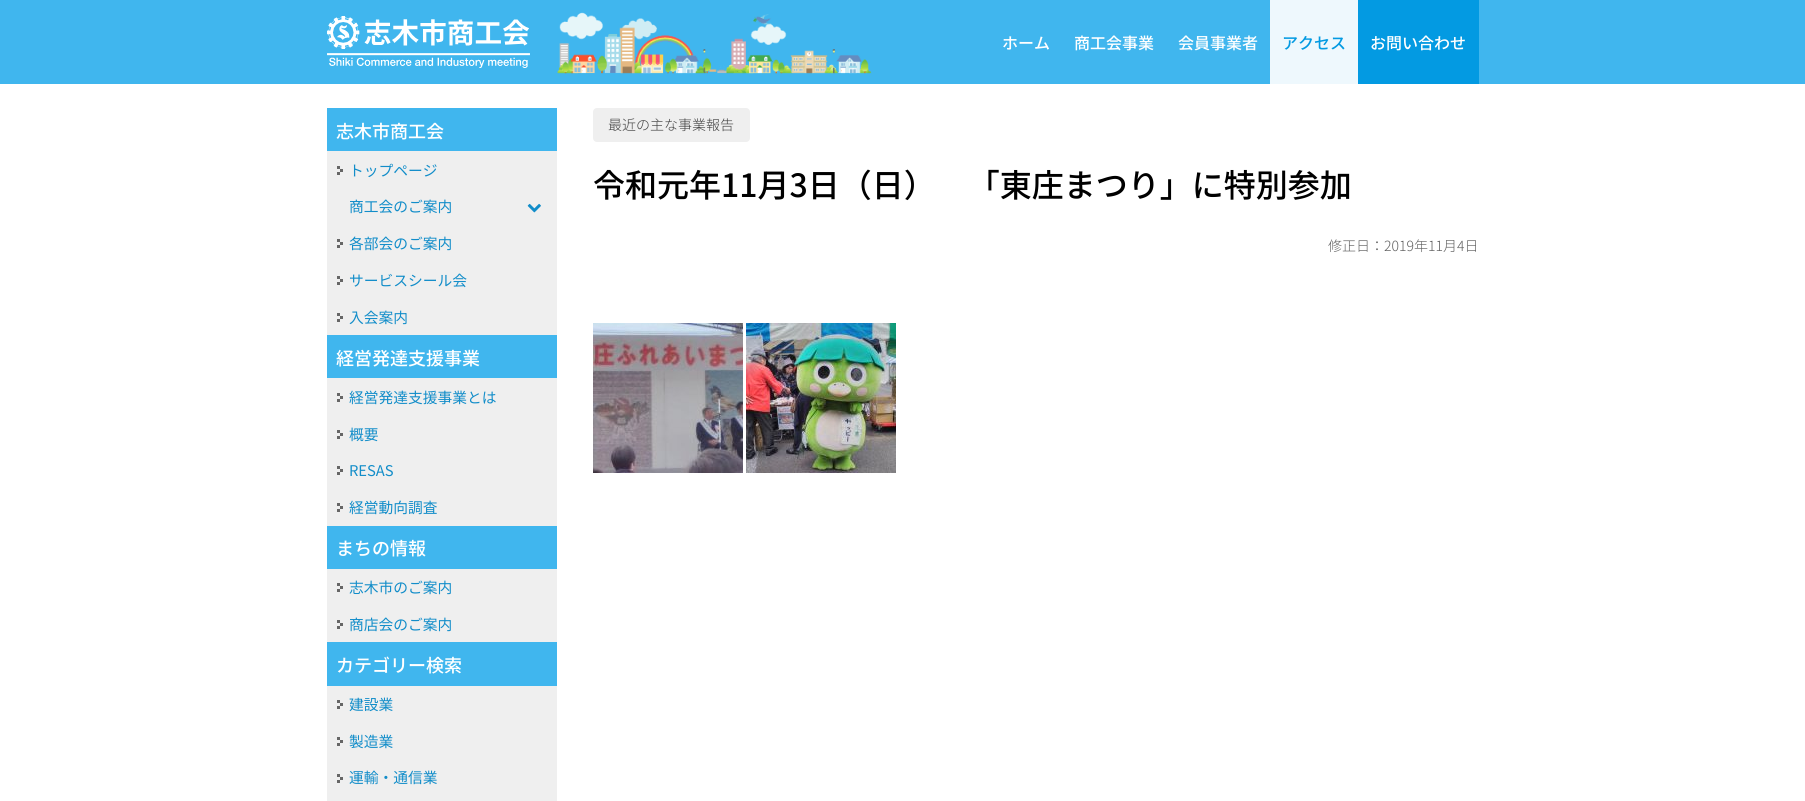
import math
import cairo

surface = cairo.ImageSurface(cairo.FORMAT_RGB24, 1805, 801)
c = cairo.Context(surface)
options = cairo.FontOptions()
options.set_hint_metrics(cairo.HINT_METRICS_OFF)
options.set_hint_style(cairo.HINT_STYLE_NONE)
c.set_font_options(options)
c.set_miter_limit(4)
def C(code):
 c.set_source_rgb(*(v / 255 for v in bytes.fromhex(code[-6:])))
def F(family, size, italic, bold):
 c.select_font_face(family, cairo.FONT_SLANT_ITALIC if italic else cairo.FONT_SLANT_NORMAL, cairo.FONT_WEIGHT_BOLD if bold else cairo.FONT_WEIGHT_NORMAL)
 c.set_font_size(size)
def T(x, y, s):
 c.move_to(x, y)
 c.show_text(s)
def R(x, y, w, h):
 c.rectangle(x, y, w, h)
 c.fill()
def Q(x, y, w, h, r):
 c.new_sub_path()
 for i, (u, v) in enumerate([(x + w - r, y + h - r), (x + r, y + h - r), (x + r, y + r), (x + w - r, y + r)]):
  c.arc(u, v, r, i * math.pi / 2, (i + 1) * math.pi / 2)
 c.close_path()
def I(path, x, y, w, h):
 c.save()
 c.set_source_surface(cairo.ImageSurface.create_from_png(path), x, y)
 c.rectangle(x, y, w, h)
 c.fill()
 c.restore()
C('ffffff')
c.paint()
C('40b6ee')
R(0,0,1805,84)
I('1.png',327,16,203,52)
I('2.png',557,12,315,62)
F('Noto Sans JP Medium',16,0,0)
C('ffffff')
T(1002,49,'ホーム')
T(1074,49,'商工会事業')
T(1178,49,'会員事業者')
C('eef8fd')
R(1270,0,88,84)
C('039ae2')
T(1282,49,'アクセス')
R(1358,0,121,84)
C('ffffff')
T(1370,49,'お問い合わせ')
C('efefef')
R(327,151,230,650)
C('40b6ee')
R(327,108,230,43)
F('Noto Sans JP Medium',18,0,0)
C('ffffff')
T(336,138,'志木市商工会')
C('666666')
R(337,166,3,3)
R(340,169,3,3)
R(337,172,3,3)
F('Noto Sans JP',14.75,0,0)
C('128dc9')
T(349,176,'トップページ')
T(349,212,'商工会のご案内')
I('3.png',527,203,14,10)
C('666666')
R(337,239,3,3)
R(340,242,3,3)
R(337,245,3,3)
C('128dc9')
T(349,249,'各部会のご案内')
C('666666')
R(337,276,3,3)
R(340,279,3,3)
R(337,282,3,3)
C('128dc9')
T(349,286,'サービスシール会')
C('666666')
R(337,313,3,3)
R(340,316,3,3)
R(337,319,3,3)
C('128dc9')
T(349,323,'入会案内')
C('40b6ee')
R(327,335,230,43)
F('Noto Sans JP Medium',18,0,0)
C('ffffff')
T(336,365,'経営発達支援事業')
C('666666')
R(337,393,3,3)
R(340,396,3,3)
R(337,399,3,3)
F('Noto Sans JP',14.75,0,0)
C('128dc9')
T(349,403,'経営発達支援事業とは')
C('666666')
R(337,430,3,3)
R(340,433,3,3)
R(337,436,3,3)
C('128dc9')
T(349,440,'概要')
C('666666')
R(337,466,3,3)
R(340,469,3,3)
R(337,472,3,3)
C('128dc9')
T(349,476,'RESAS')
C('666666')
R(337,503,3,3)
R(340,506,3,3)
R(337,509,3,3)
C('128dc9')
T(349,513,'経営動向調査')
C('40b6ee')
R(327,526,230,43)
F('Noto Sans JP Medium',18,0,0)
C('ffffff')
T(336,555,'まちの情報')
C('666666')
R(337,583,3,3)
R(340,586,3,3)
R(337,589,3,3)
F('Noto Sans JP',14.75,0,0)
C('128dc9')
T(349,593,'志木市のご案内')
C('666666')
R(337,620,3,3)
R(340,623,3,3)
R(337,626,3,3)
C('128dc9')
T(349,630,'商店会のご案内')
C('40b6ee')
R(327,642,230,44)
F('Noto Sans JP Medium',18,0,0)
C('ffffff')
T(336,672,'カテゴリー検索')
C('666666')
R(337,700,3,3)
R(340,703,3,3)
R(337,706,3,3)
F('Noto Sans JP',14.75,0,0)
C('128dc9')
T(349,710,'建設業')
C('666666')
R(337,737,3,3)
R(340,740,3,3)
R(337,743,3,3)
C('128dc9')
T(349,747,'製造業')
C('666666')
R(337,774,3,3)
R(340,777,3,3)
R(337,780,3,3)
C('128dc9')
T(349,783,'運輸・通信業')
C('efefef')
Q(593,108,157,34,4)
c.fill()
F('Noto Sans JP Light',14,0,0)
C('404040')
T(608,130,'最近の主な事業報告')
F('Noto Sans JP Medium',32,0,0)
C('000000')
T(593,197,'令和元年11月3日（日）　「東庄まつり」に特別参加')
F('Noto Sans JP Light',14,0,0)
C('606060')
T(1328,251,'修正日：2019年11月4日')
I('4.png',593,323,150,150)
I('5.png',746,323,150,150)
surface.write_to_png('o.png')
